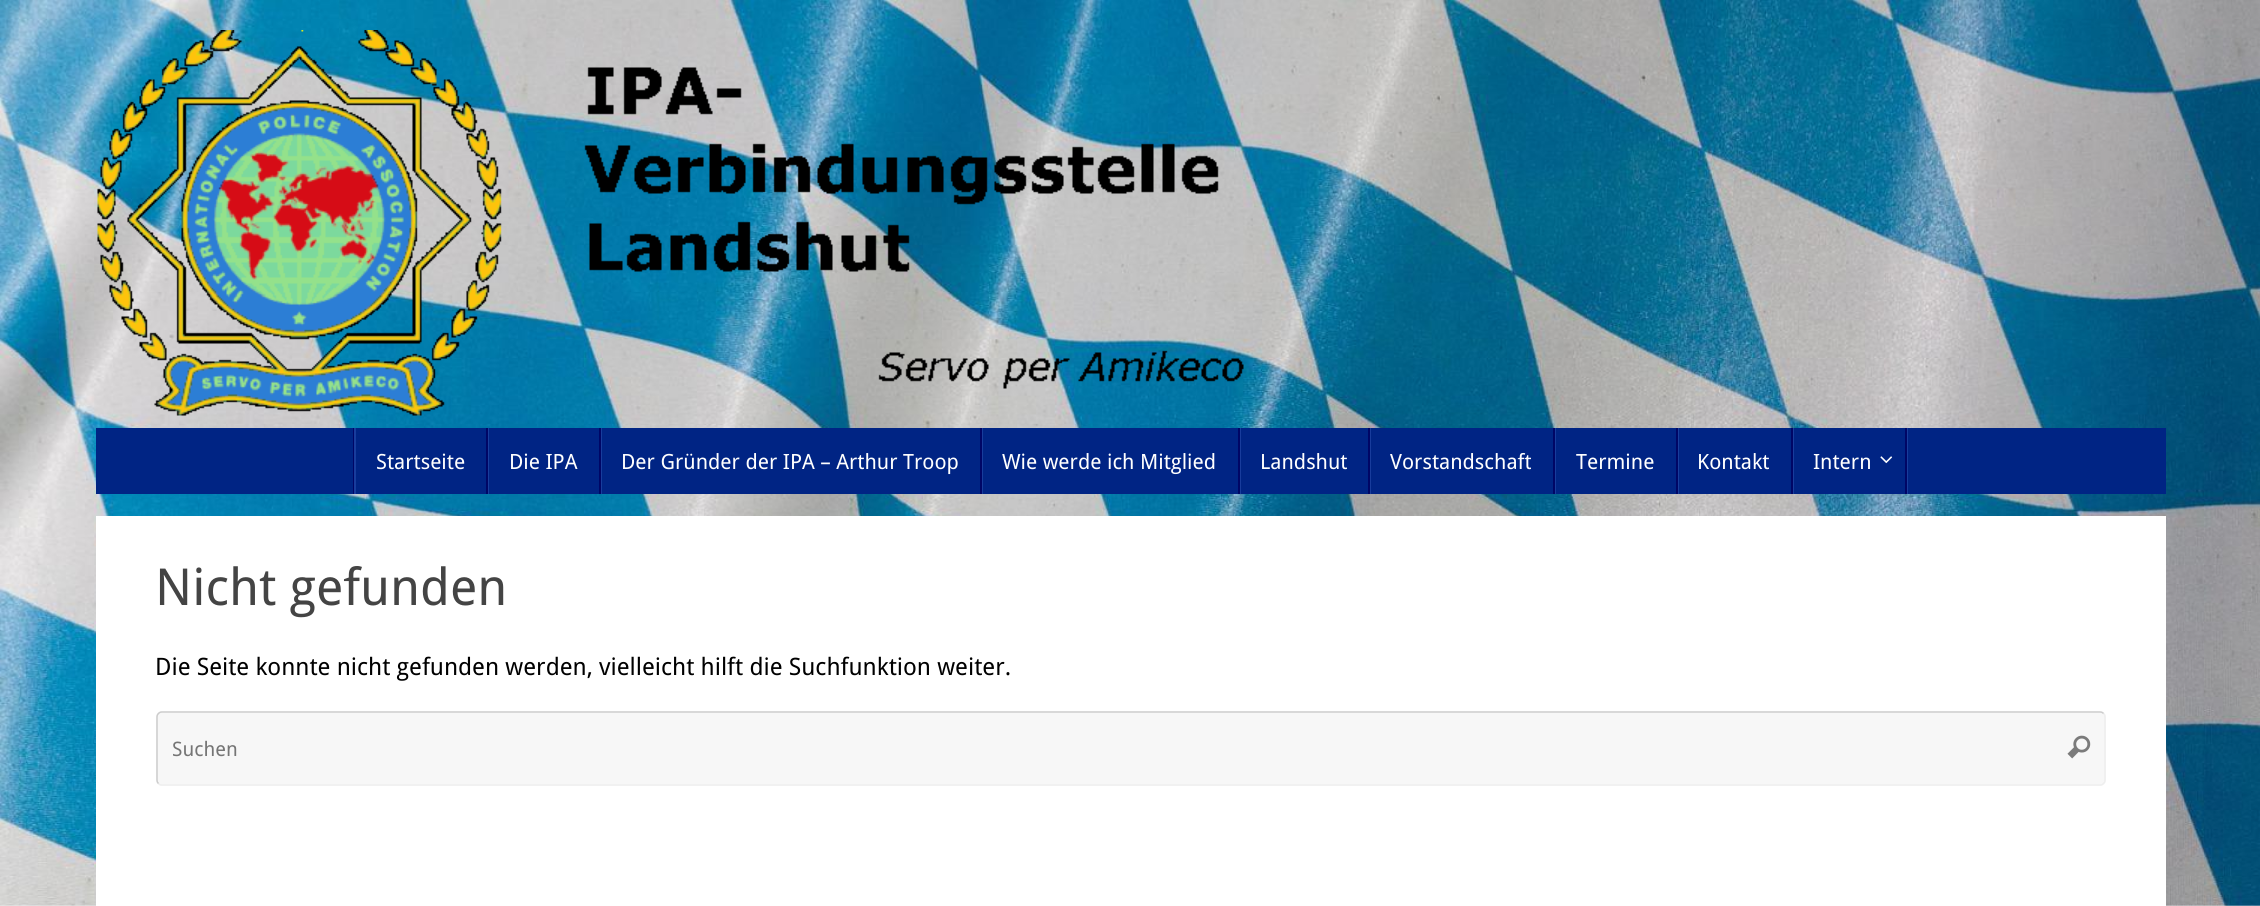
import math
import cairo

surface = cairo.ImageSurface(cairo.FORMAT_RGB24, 2260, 906)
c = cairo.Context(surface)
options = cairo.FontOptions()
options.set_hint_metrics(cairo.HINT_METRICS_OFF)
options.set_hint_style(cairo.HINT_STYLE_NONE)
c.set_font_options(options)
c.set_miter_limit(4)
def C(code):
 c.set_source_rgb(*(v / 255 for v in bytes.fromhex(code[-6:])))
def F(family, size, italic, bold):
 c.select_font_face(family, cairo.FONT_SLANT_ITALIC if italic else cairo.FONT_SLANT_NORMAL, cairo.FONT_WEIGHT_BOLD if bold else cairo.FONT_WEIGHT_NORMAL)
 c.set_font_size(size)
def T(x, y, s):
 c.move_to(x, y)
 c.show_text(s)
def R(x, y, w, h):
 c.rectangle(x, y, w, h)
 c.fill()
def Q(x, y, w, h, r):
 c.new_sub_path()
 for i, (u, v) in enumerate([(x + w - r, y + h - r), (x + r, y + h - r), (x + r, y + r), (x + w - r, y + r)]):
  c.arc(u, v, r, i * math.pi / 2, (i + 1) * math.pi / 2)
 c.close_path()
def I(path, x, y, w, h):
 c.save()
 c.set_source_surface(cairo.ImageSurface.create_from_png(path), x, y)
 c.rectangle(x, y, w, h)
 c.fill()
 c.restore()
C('ffffff')
c.paint()
I('1.png',0,0,2260,906)
I('2.png',97,30,1147,386)
C('002484')
R(96,428,2070,66)
C('000666')
c.new_path()
c.move_to(353,428)
c.line_to(353,494)
c.line_to(1905,494)
c.line_to(354,494)
c.line_to(354,428)
c.close_path()
c.fill()
C('183c9c')
R(354,428,2,66)
c.new_path()
c.move_to(357,494)
c.line_to(489,494)
c.line_to(489,428)
c.line_to(488,428)
c.line_to(488,494)
c.close_path()
c.fill()
C('000666')
R(486,428,2,66)
F('Droid Sans',21,0,0)
C('ffffff')
T(376,469,'Startseite')
C('183c9c')
c.new_path()
c.move_to(489,494)
c.line_to(602,494)
c.line_to(602,428)
c.line_to(600,428)
c.line_to(600,494)
c.close_path()
c.fill()
C('000666')
R(599,428,2,66)
C('ffffff')
T(509,469,'Die IPA')
C('183c9c')
c.new_path()
c.move_to(602,494)
c.line_to(983,494)
c.line_to(983,428)
c.line_to(981,428)
c.line_to(981,494)
c.close_path()
c.fill()
C('000666')
R(980,428,2,66)
C('ffffff')
T(621,469,'Der Gründer der IPA – Arthur Troop')
C('183c9c')
c.new_path()
c.move_to(983,494)
c.line_to(1241,494)
c.line_to(1241,428)
c.line_to(1239,428)
c.line_to(1239,494)
c.close_path()
c.fill()
C('000666')
R(1238,428,2,66)
C('ffffff')
T(1002,469,'Wie werde ich Mitglied')
C('183c9c')
c.new_path()
c.move_to(1241,494)
c.line_to(1371,494)
c.line_to(1371,428)
c.line_to(1370,428)
c.line_to(1370,494)
c.close_path()
c.fill()
C('000666')
R(1368,428,2,66)
C('ffffff')
T(1260,469,'Landshut')
C('183c9c')
c.new_path()
c.move_to(1371,494)
c.line_to(1556,494)
c.line_to(1556,428)
c.line_to(1554,428)
c.line_to(1554,494)
c.close_path()
c.fill()
C('000666')
R(1553,428,2,66)
C('ffffff')
T(1390,469,'Vorstandschaft')
C('183c9c')
c.new_path()
c.move_to(1556,494)
c.line_to(1679,494)
c.line_to(1679,428)
c.line_to(1677,428)
c.line_to(1677,494)
c.close_path()
c.fill()
C('000666')
R(1676,428,2,66)
C('ffffff')
T(1576,469,'Termine')
C('183c9c')
c.new_path()
c.move_to(1679,494)
c.line_to(1794,494)
c.line_to(1794,428)
c.line_to(1792,428)
c.line_to(1792,494)
c.close_path()
c.fill()
C('000666')
R(1791,428,2,66)
C('ffffff')
T(1697,469,'Kontakt')
C('183c9c')
c.new_path()
c.move_to(1794,494)
c.line_to(1908,494)
c.line_to(1908,428)
c.line_to(1906,428)
c.line_to(1906,494)
c.close_path()
c.fill()
C('000666')
R(1905,428,2,66)
C('ffffff')
T(1813,469,'Intern')
I('3.png',1880,456,13,8)
R(96,516,2070,390)
F('Droid Sans',51,0,0)
C('444444')
T(155,605,'Nicht gefunden')
F('Droid Sans',24,0,0)
C('000000')
T(155,675,'Die Seite konnte nicht gefunden werden, vielleicht hilft die Suchfunktion weiter.')
C('f7f7f7')
Q(156,711,1950,75,6)
c.fill()
c.new_path()
c.move_to(2103.5,713.5)
c.curve_to(2104.5,714.5,2105,715.5,2105,717)
c.line_to(2105,780)
c.curve_to(2105,781.5,2104.5,782.5,2103.5,783.5)
c.curve_to(2102.5,784.5,2101.5,785,2100,785)
c.line_to(162,785)
c.curve_to(160.5,785,159.5,784.5,158.5,783.5)
C('eeeeee')
c.set_line_width(1.5)
c.stroke()
c.new_path()
c.move_to(158.5,783.5)
c.curve_to(157.5,782.5,157,781.5,157,780)
c.line_to(157,717)
c.curve_to(157,715.5,157.5,714.5,158.5,713.5)
c.curve_to(159.5,712.5,160.5,712,162,712)
c.line_to(2100,712)
c.curve_to(2101.5,712,2102.5,712.5,2103.5,713.5)
C('cccccc')
c.stroke()
F('Droid Sans',20,0,0)
C('757575')
T(172,756,'Suchen')
I('4.png',2067,735,24,24)
surface.write_to_png('o.png')
